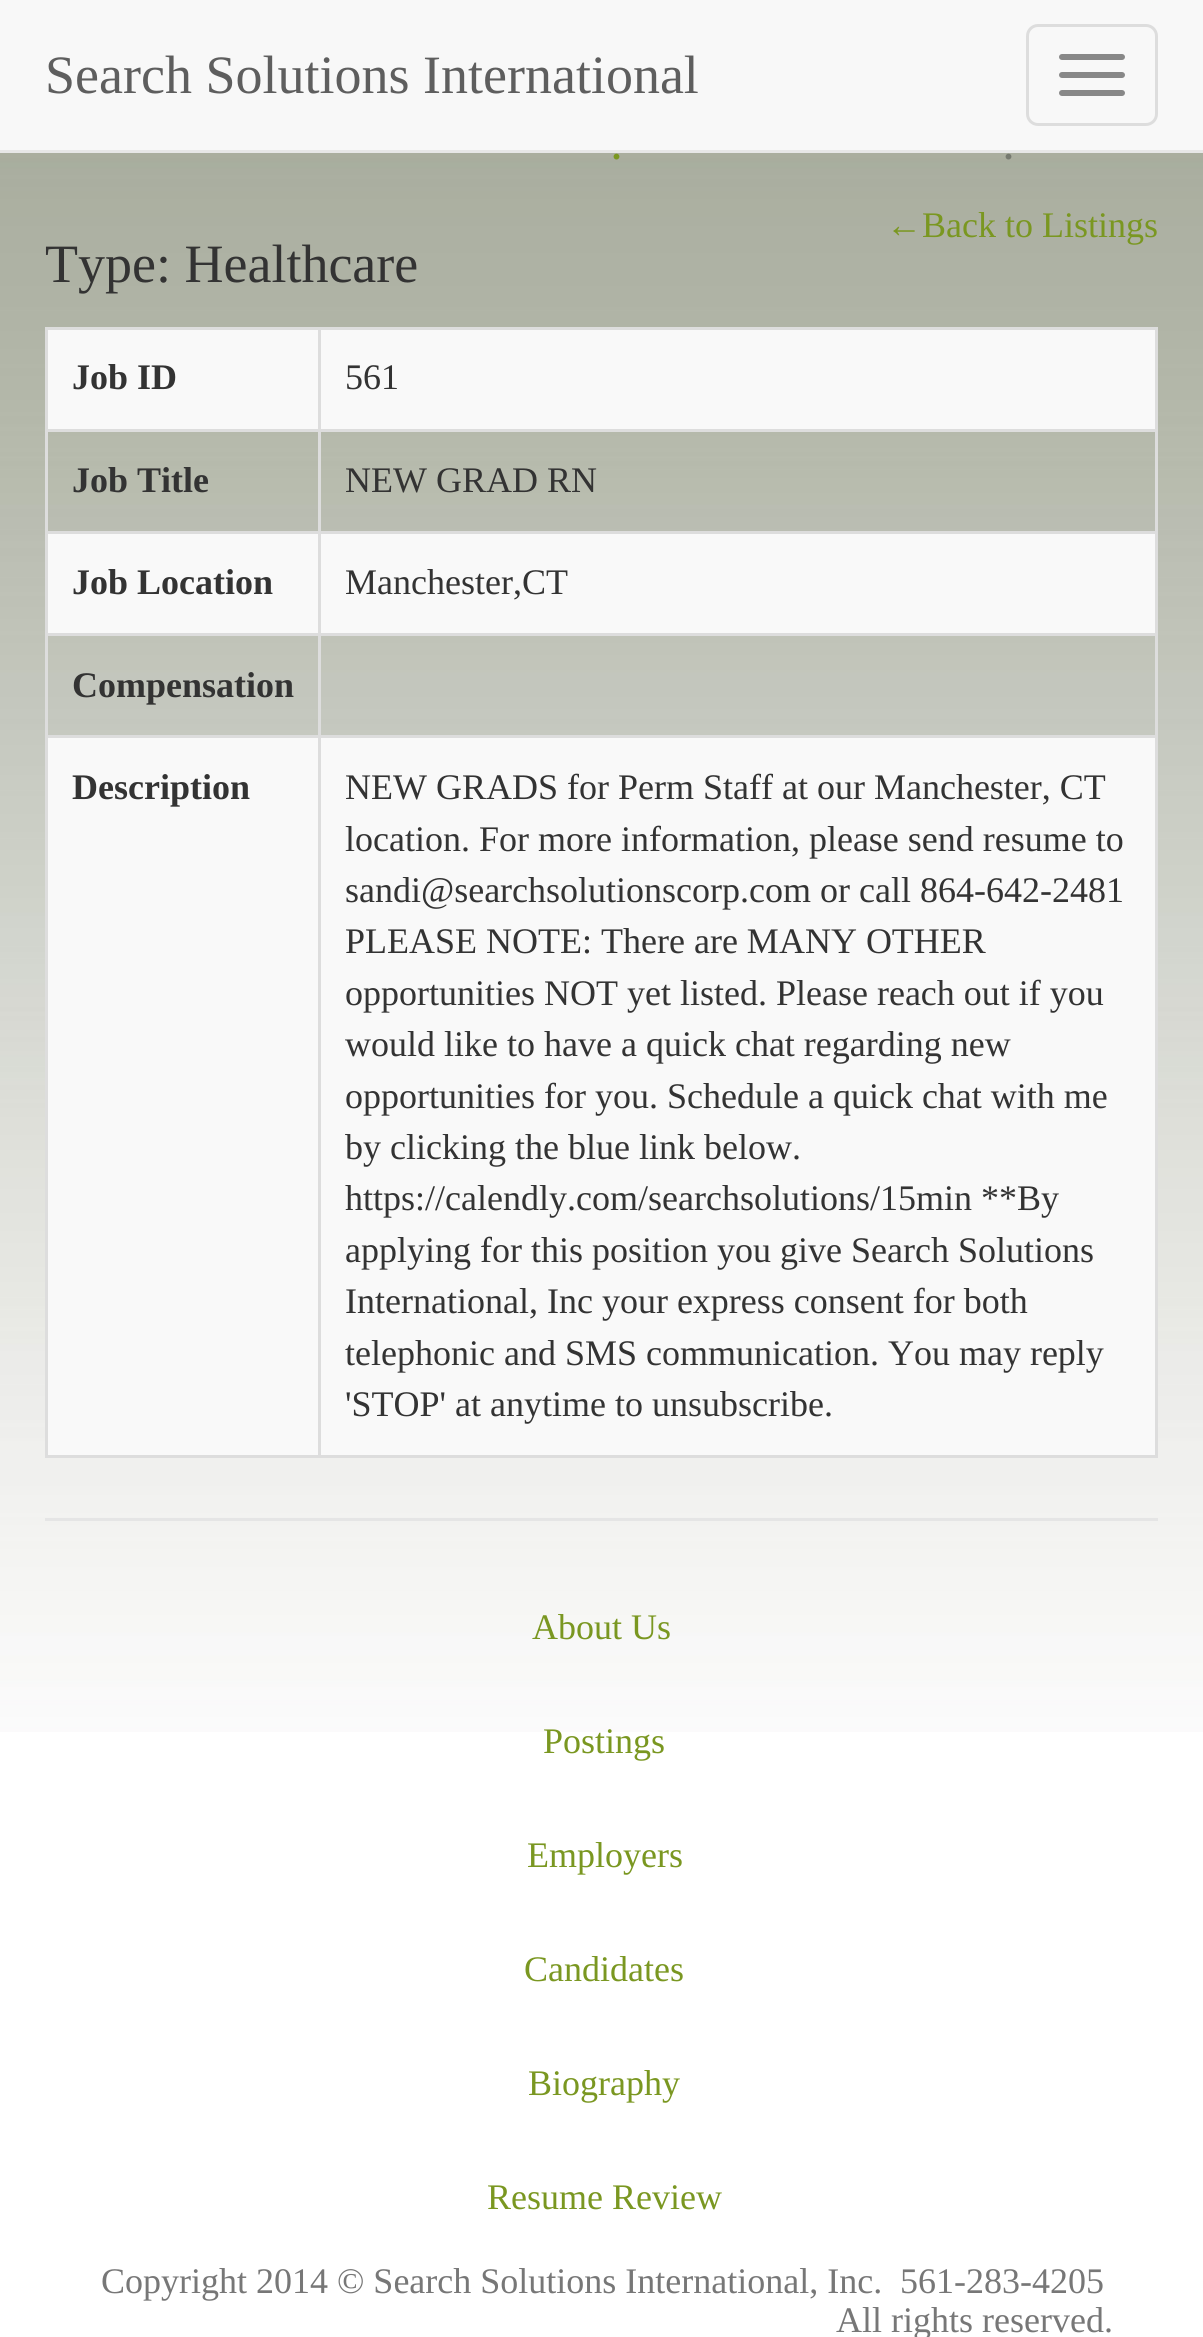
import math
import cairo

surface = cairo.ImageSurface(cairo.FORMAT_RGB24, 1203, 2337)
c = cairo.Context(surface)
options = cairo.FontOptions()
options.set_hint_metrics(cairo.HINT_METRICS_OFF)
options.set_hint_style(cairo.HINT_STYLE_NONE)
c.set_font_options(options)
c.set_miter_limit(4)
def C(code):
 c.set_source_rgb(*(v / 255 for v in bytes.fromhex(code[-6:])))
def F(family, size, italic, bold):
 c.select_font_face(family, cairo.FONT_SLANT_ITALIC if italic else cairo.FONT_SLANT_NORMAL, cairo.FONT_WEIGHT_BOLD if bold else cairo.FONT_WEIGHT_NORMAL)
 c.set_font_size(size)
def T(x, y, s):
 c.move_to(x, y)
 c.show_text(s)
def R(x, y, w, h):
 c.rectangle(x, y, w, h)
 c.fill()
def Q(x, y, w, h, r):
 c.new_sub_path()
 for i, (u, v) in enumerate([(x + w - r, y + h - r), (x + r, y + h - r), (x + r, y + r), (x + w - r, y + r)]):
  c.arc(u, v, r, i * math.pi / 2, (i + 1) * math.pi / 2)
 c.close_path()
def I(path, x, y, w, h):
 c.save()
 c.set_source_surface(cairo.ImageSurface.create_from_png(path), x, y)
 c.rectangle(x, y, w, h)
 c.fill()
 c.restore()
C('ffffff')
c.paint()
I('1.png',0,153,1203,1579)
C('f8f8f8')
R(0,0,1203,150)
C('e7e7e7')
R(0,150,1203,3)
F('Liberation Serif',54,0,0)
C('5e5e5e')
T(45,93,'Search Solutions International')
Q(1027.5,25.5,129,99,10.5)
C('dddddd')
c.set_line_width(3)
c.stroke()
C('888888')
Q(1059,54,66,6,3)
c.fill()
Q(1059,72,66,6,3)
c.fill()
Q(1059,90,66,6,3)
c.fill()
F('Liberation Serif',36,0,1)
C('7a9721')
T(612,159,'.')
C('767a70')
T(1004,159,'.')
F('Liberation Serif',36,0,0)
C('7a9721')
T(886,237,'←Back to Listings')
F('Liberation Serif',54,0,0)
C('333333')
T(45,282,'Type: Healthcare')
C('dddddd')
R(45,327,1113,3)
R(1155,327,3,1131)
R(45,1455,1113,3)
R(45,327,3,1131)
C('f9f9f9')
R(48,330,270,99)
F('Liberation Serif',36,0,1)
C('333333')
T(72,389,'Job ID')
C('f9f9f9')
R(321,330,834,99)
C('dddddd')
R(318,429,840,3)
R(318,531,840,3)
R(318,633,840,3)
R(318,735,840,3)
R(318,735,3,723)
R(45,735,276,3)
R(318,633,3,105)
R(45,633,276,3)
R(318,531,3,105)
R(45,531,276,3)
R(318,429,3,105)
R(45,429,276,3)
R(318,327,3,105)
F('Liberation Serif',36,0,0)
C('333333')
T(345,389,'561')
F('Liberation Serif',36,0,1)
T(72,492,'Job Title')
F('Liberation Serif',36,0,0)
T(345,492,'NEW GRAD RN')
C('f9f9f9')
R(48,534,270,99)
F('Liberation Serif',36,0,1)
C('333333')
T(72,594,'Job Location')
C('f9f9f9')
R(321,534,834,99)
F('Liberation Serif',36,0,0)
C('333333')
T(345,594,'Manchester,CT')
F('Liberation Serif',36,0,1)
T(72,697,'Compensation')
C('f9f9f9')
R(48,738,270,717)
C('333333')
T(72,799,'Description')
C('f9f9f9')
R(321,738,834,717)
F('Liberation Serif',36,0,0)
C('333333')
T(345,799,'NEW GRADS for Perm Staff at our Manchester, CT')
T(345,851,'location. For more information, please send resume to')
T(345,902,'sandi@searchsolutionscorp.com or call 864-642-2481')
T(345,953,'PLEASE NOTE: There are MANY OTHER')
T(345,1005,'opportunities NOT yet listed. Please reach out if you')
T(345,1056,'would like to have a quick chat regarding new')
T(345,1108,'opportunities for you. Schedule a quick chat with me')
T(345,1159,'by clicking the blue link below.')
T(345,1210,'https://calendly.com/searchsolutions/15min **By')
T(345,1262,'applying for this position you give Search Solutions')
T(345,1313,'International, Inc your express consent for both')
T(345,1365,'telephonic and SMS communication. You may reply')
T(345,1416,'\'STOP\' at anytime to unsubscribe.')
C('e5e5e5')
R(45,1518,1113,3)
C('7a9721')
T(532,1639,'About Us')
T(543,1753,'Postings')
T(527,1867,'Employers')
T(524,1981,'Candidates')
T(528,2095,'Biography')
T(487,2209,'Resume Review')
C('777777')
T(101,2293,'Copyright 2014 © Search Solutions International, Inc.')
T(900,2293,'561-283-4205')
T(836,2332,'All rights reserved.')
surface.write_to_png('o.png')
